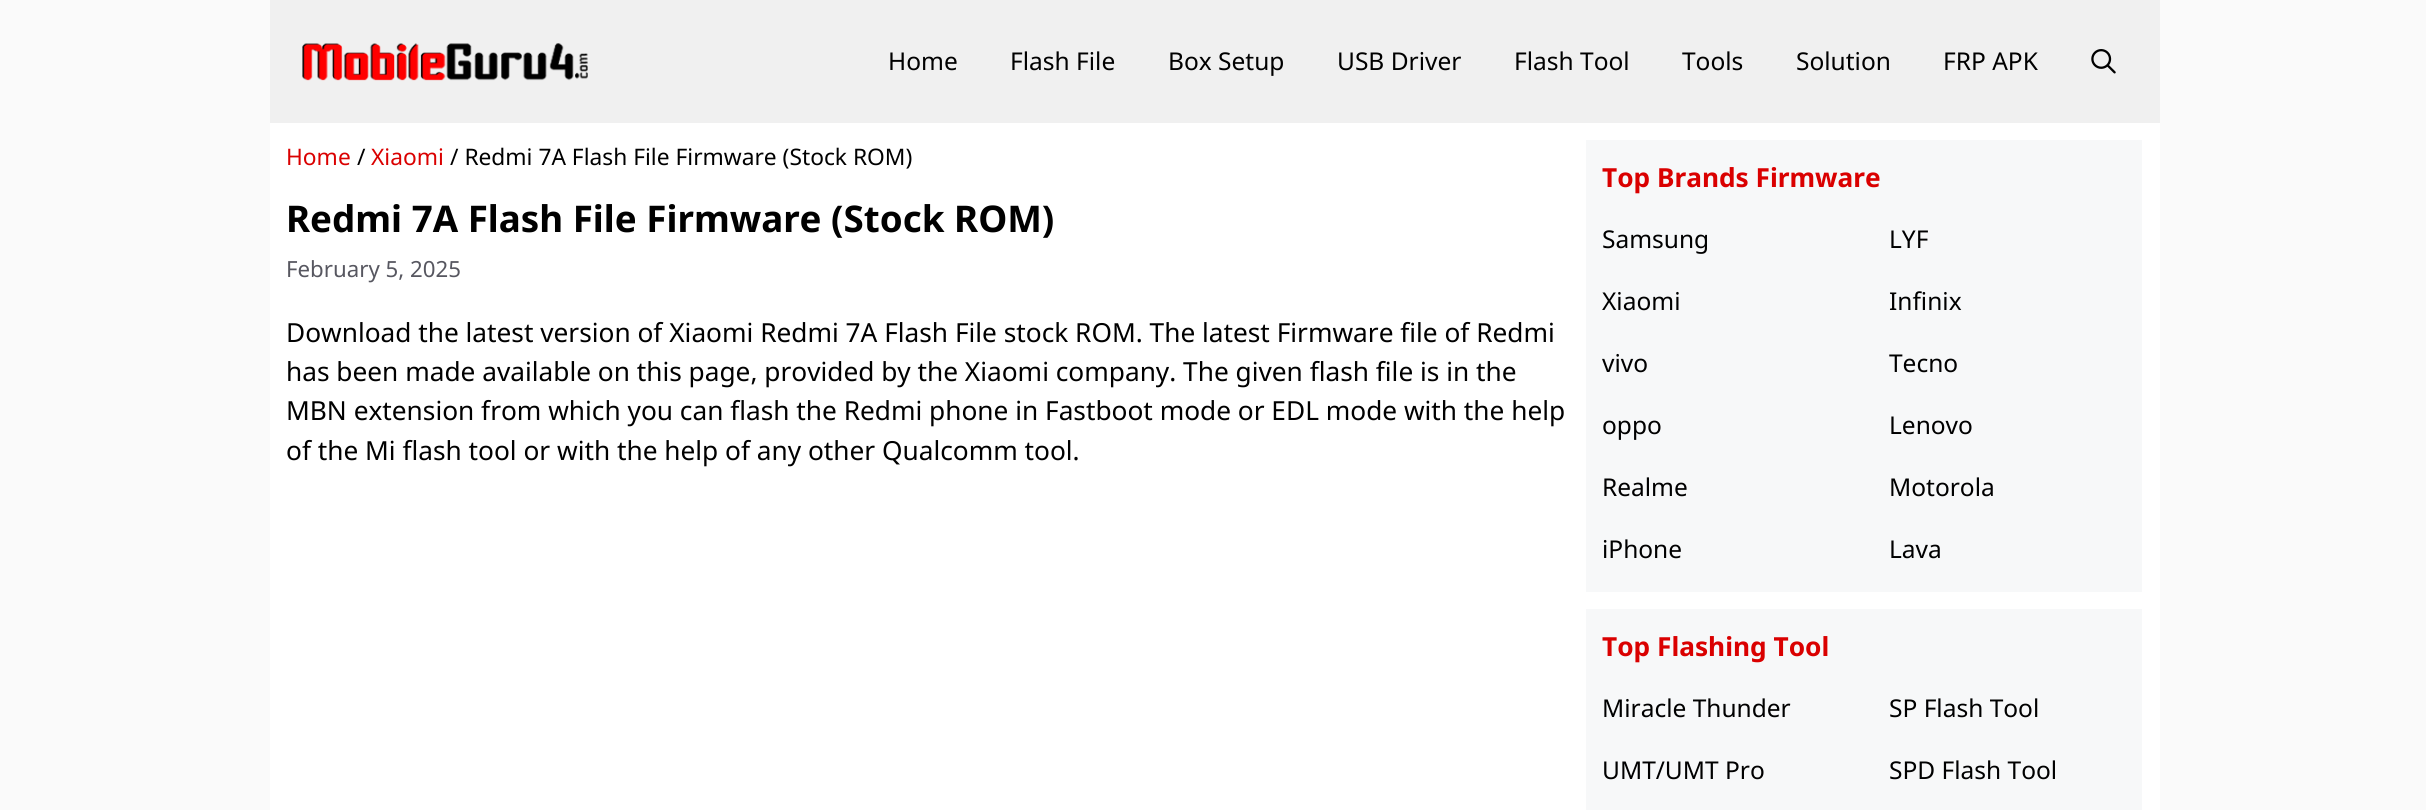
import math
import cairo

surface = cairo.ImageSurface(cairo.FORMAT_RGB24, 2426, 810)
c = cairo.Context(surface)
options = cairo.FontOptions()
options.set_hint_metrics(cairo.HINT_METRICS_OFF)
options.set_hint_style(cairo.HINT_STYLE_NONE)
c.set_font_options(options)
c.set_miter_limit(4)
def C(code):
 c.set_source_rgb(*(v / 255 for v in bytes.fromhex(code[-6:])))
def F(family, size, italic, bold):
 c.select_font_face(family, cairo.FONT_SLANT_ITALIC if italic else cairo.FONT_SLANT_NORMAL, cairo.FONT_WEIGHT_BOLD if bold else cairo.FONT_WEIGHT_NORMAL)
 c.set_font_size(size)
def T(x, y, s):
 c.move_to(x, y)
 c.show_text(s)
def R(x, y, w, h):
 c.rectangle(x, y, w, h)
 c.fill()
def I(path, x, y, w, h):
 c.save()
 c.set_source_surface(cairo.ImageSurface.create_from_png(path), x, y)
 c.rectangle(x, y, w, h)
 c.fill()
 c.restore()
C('fafafa')
c.paint()
C('f0f0f0')
R(270,0,1890,123)
I('1.png',302,43,286,38)
F('Noto Sans',24.5,0,0)
C('000000')
T(888,70,'Home')
T(1010,70,'Flash File')
T(1168,70,'Box Setup')
T(1337,70,'USB Driver')
T(1514,70,'Flash Tool')
T(1682,70,'Tools')
T(1796,70,'Solution')
T(1943,70,'FRP APK')
I('2.png',2091,49,25,25)
C('ffffff')
R(270,123,1890,687)
F('Noto Sans',22.75,0,0)
C('da0000')
T(286,165,'Home')
C('000000')
T(357,165,'/')
C('da0000')
T(371,165,'Xiaomi')
C('000000')
T(450,165,'/ Redmi 7A Flash File Firmware (Stock ROM)')
F('Noto Sans',36.75,0,1)
T(286,232,'Redmi 7A Flash File Firmware (Stock ROM)')
F('Noto Sans',22.25,0,0)
C('575760')
T(286,277,'February 5, 2025')
F('Noto Sans',26.25,0,0)
C('000000')
T(286,342,'Download the latest version of Xiaomi Redmi 7A Flash File stock ROM. The latest Firmware file of Redmi')
T(286,381,'has been made available on this page, provided by the Xiaomi company. The given flash file is in the')
T(286,420,'MBN extension from which you can flash the Redmi phone in Fastboot mode or EDL mode with the help')
T(286,460,'of the Mi flash tool or with the help of any other Qualcomm tool.')
C('f7f8f9')
R(1586,140,556,452)
F('Noto Sans',26.25,0,1)
C('da0000')
T(1602,187,'Top Brands Firmware')
F('Noto Sans',24.5,0,0)
C('000000')
T(1602,248,'Samsung')
T(1602,310,'Xiaomi')
T(1602,372,'vivo')
T(1602,434,'oppo')
T(1602,496,'Realme')
T(1602,558,'iPhone')
T(1889,248,'LYF')
T(1889,310,'Infinix')
T(1889,372,'Tecno')
T(1889,434,'Lenovo')
T(1889,496,'Motorola')
T(1889,558,'Lava')
C('f7f8f9')
R(1586,609,556,201)
F('Noto Sans',26.25,0,1)
C('da0000')
T(1602,656,'Top Flashing Tool')
F('Noto Sans',24.5,0,0)
C('000000')
T(1602,717,'Miracle Thunder')
T(1602,779,'UMT/UMT Pro')
T(1889,717,'SP Flash Tool')
T(1889,779,'SPD Flash Tool')
surface.write_to_png('o.png')
